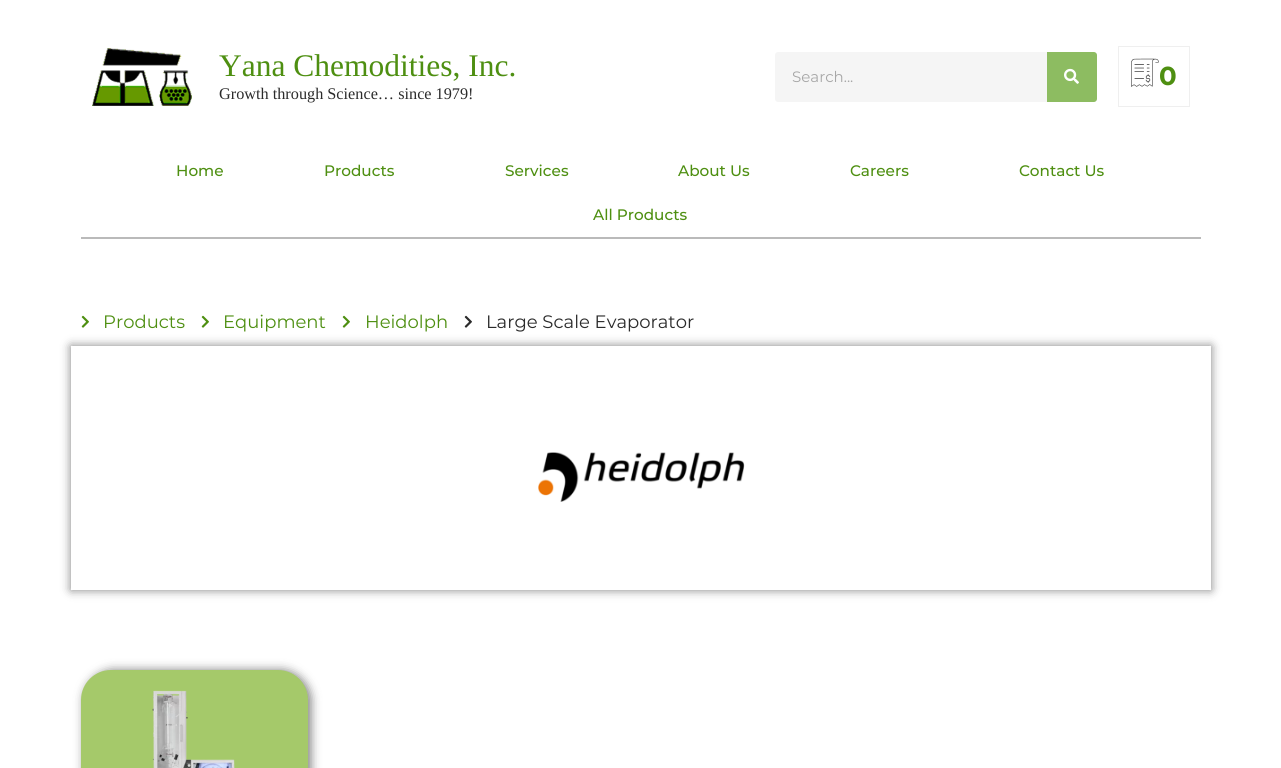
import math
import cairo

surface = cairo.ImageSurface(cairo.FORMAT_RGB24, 1281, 768)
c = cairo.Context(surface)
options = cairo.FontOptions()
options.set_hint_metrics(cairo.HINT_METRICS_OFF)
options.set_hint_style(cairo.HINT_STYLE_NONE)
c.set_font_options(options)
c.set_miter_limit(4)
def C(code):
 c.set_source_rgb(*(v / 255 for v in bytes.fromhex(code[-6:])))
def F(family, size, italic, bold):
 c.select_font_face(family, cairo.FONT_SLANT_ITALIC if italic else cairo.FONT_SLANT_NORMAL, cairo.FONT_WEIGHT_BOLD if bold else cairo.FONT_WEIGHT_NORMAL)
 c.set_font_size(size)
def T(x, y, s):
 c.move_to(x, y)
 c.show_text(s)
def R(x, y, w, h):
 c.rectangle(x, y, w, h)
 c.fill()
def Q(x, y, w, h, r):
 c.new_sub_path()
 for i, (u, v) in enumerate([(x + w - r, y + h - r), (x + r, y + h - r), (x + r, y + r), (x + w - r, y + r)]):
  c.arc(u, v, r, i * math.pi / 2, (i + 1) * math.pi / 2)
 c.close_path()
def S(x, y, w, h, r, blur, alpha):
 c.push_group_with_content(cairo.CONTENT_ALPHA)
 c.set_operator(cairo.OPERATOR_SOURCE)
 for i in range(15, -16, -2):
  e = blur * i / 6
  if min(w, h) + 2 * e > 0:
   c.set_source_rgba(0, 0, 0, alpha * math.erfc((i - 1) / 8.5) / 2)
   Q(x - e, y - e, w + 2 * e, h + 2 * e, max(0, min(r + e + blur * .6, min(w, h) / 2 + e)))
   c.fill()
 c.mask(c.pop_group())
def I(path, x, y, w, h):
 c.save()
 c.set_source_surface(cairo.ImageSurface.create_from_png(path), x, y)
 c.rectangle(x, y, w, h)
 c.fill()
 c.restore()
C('ffffff')
c.paint()
I('1.png',92,48,100,58)
F('Liberation Serif',31.5,0,0)
C('4e8f11')
T(219,76,'Yana Chemodities, Inc.')
F('Liberation Serif',16.25,0,0)
C('2b2b2b')
T(219,99,'Growth through Science… since 1979!')
C('f5f5f5')
Q(775,52,322,50,3)
c.fill()
F('Montserrat',15,0,0)
C('a7a7a7')
T(792,82,'Search...')
C('8dbc61')
c.new_path()
c.move_to(1047,52)
c.line_to(1094,52)
c.curve_to(1095.5,52,1097,53.5,1097,55)
c.line_to(1097,99)
c.curve_to(1097,100.5,1095.5,102,1094,102)
c.line_to(1047,102)
c.close_path()
c.fill()
I('2.png',1064,68,15,16)
c.rectangle(1118.5,46.5,71,60)
C('efefef')
c.set_line_width(1)
c.stroke()
I('3.png',1131,58,28,29)
F('Montserrat',26,0,1)
C('4e8f11')
T(1159,85,'0')
C('bababa')
R(81,237,1120,2)
F('Montserrat Medium',15.25,0,0)
C('4e8f11')
T(176,176,'Home')
T(324,176,'Products')
T(505,176,'Services')
T(678,176,'About Us')
T(850,176,'Careers')
T(1019,176,'Contact Us')
T(593,220,'All Products')
I('4.png',81,315,8,13)
F('Montserrat',18,0,0)
T(103,328,'Products')
I('4.png',201,315,8,13)
T(223,328,'Equipment')
I('4.png',342,315,8,13)
T(365,328,'Heidolph')
I('5.png',464,315,8,13)
C('2b2b2b')
T(486,328,'Large Scale Evaporator')
c.save()
c.set_fill_rule(cairo.FILL_RULE_EVEN_ODD)
c.new_path()
c.move_to(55,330)
c.line_to(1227,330)
c.line_to(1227,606)
c.line_to(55,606)
c.close_path()
c.move_to(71,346)
c.line_to(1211,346)
c.line_to(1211,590)
c.line_to(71,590)
c.close_path()
c.clip()
C('000000')
S(71,346,1140,244,0,5,.5)
c.restore()
I('6.png',538,452,207,50)
C('000000')
S(84,670,227,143,30,5,.5)
C('a5c96a')
Q(81,670,227,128,30)
c.fill()
I('7.png',152,690,83,78)
surface.write_to_png('o.png')
